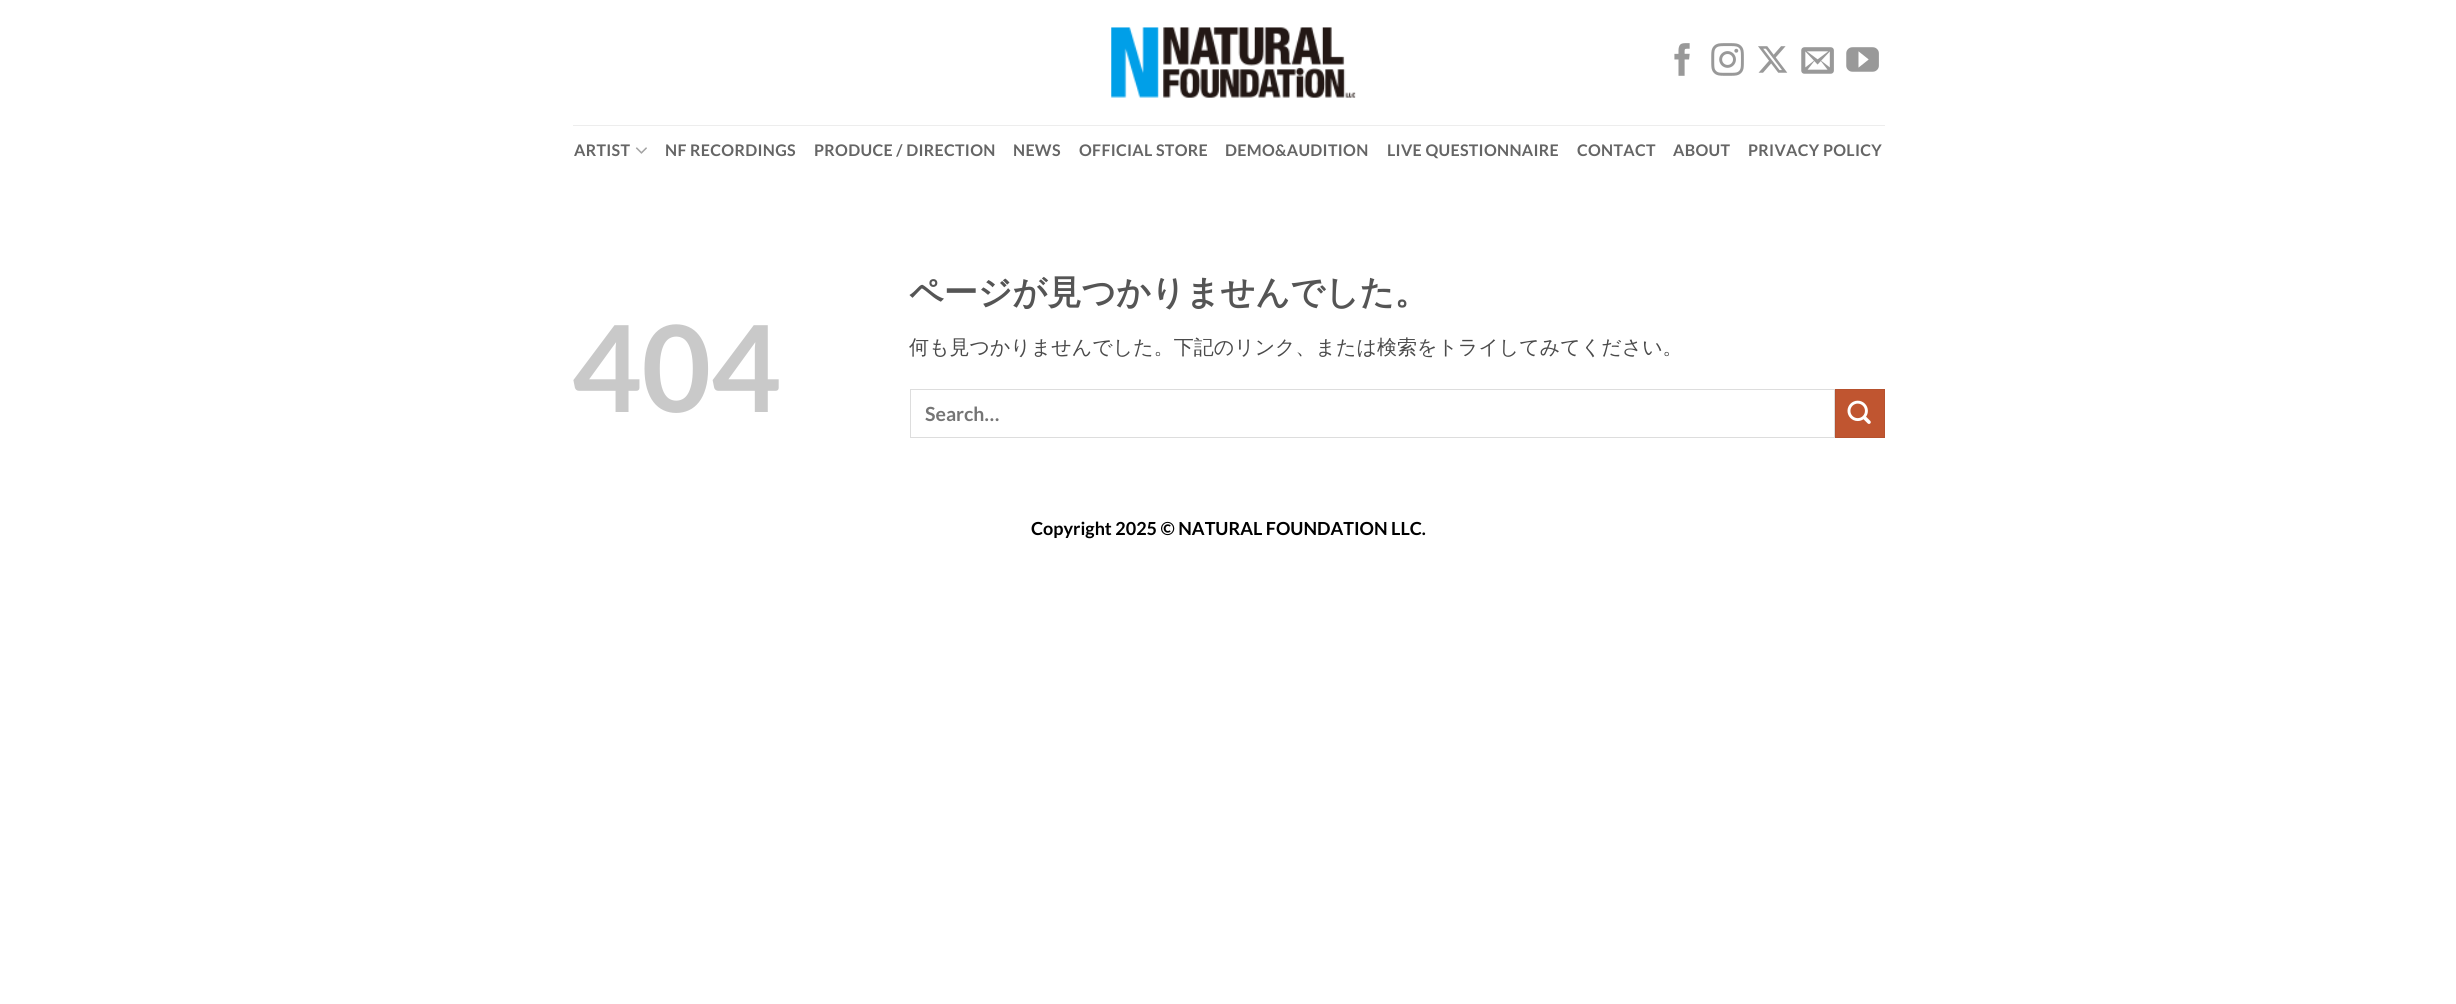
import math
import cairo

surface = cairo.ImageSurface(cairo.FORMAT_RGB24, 2456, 1004)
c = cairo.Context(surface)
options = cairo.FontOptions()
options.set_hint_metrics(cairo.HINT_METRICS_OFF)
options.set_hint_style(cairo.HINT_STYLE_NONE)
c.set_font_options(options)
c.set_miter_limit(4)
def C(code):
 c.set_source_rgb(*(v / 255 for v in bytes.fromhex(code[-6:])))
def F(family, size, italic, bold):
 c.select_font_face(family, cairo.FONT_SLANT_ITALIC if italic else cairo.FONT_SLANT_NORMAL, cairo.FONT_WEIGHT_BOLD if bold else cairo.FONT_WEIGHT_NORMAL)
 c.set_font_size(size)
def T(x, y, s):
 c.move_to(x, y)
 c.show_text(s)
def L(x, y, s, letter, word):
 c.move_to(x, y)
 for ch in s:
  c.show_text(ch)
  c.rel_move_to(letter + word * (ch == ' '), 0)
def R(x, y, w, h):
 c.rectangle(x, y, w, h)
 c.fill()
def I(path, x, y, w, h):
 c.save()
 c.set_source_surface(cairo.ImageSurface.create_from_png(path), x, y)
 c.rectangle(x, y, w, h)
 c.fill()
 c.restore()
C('ffffff')
c.paint()
I('1.png',1111,27,245,71)
I('2.png',1674,43,16,33)
I('3.png',1711,43,33,33)
I('4.png',1758,46,30,27)
I('5.png',1801,47,33,27)
I('6.png',1846,47,33,25)
C('ededed')
R(573,125,1312,1)
F('Lato',16,0,1)
C('656565')
L(574,156,'ARTIST',.3,0)
I('7.png',635,147,12,7)
L(665,156,'NF RECORDINGS',.3,0)
L(814,156,'PRODUCE / DIRECTION',.3,0)
L(1013,156,'NEWS',.3,0)
L(1079,156,'OFFICIAL STORE',.3,0)
L(1225,156,'DEMO&AUDITION',.3,0)
L(1387,156,'LIVE QUESTIONNAIRE',.3,0)
L(1577,156,'CONTACT',.3,0)
L(1673,156,'ABOUT',.3,0)
L(1748,156,'PRIVACY POLICY',.3,0)
F('Lato',120,0,1)
C('c9c9c9')
T(572,412,'404')
F('WenQuanYi Zen Hei',34,0,1)
C('555555')
T(909,304,'ページが見つかりませんでした。')
F('WenQuanYi Zen Hei Medium',20,0,0)
C('4a4a4a')
T(909,354,'何も見つかりませんでした。下記のリンク、または検索をトライしてみてください。')
c.rectangle(910.5,389.5,924,48)
C('dddddd')
c.set_line_width(1)
c.stroke()
F('Lato',19.5,0,1)
C('757575')
T(925,421,'Search…')
C('c05530')
c.rectangle(1835.5,389.5,49,48)
c.fill_preserve()
C('b6512e')
c.stroke()
I('8.png',1847,400,24,24)
F('Lato',18,0,1)
C('000000')
T(1031,535,'Copyright 2025 © NATURAL FOUNDATION LLC.')
surface.write_to_png('o.png')
